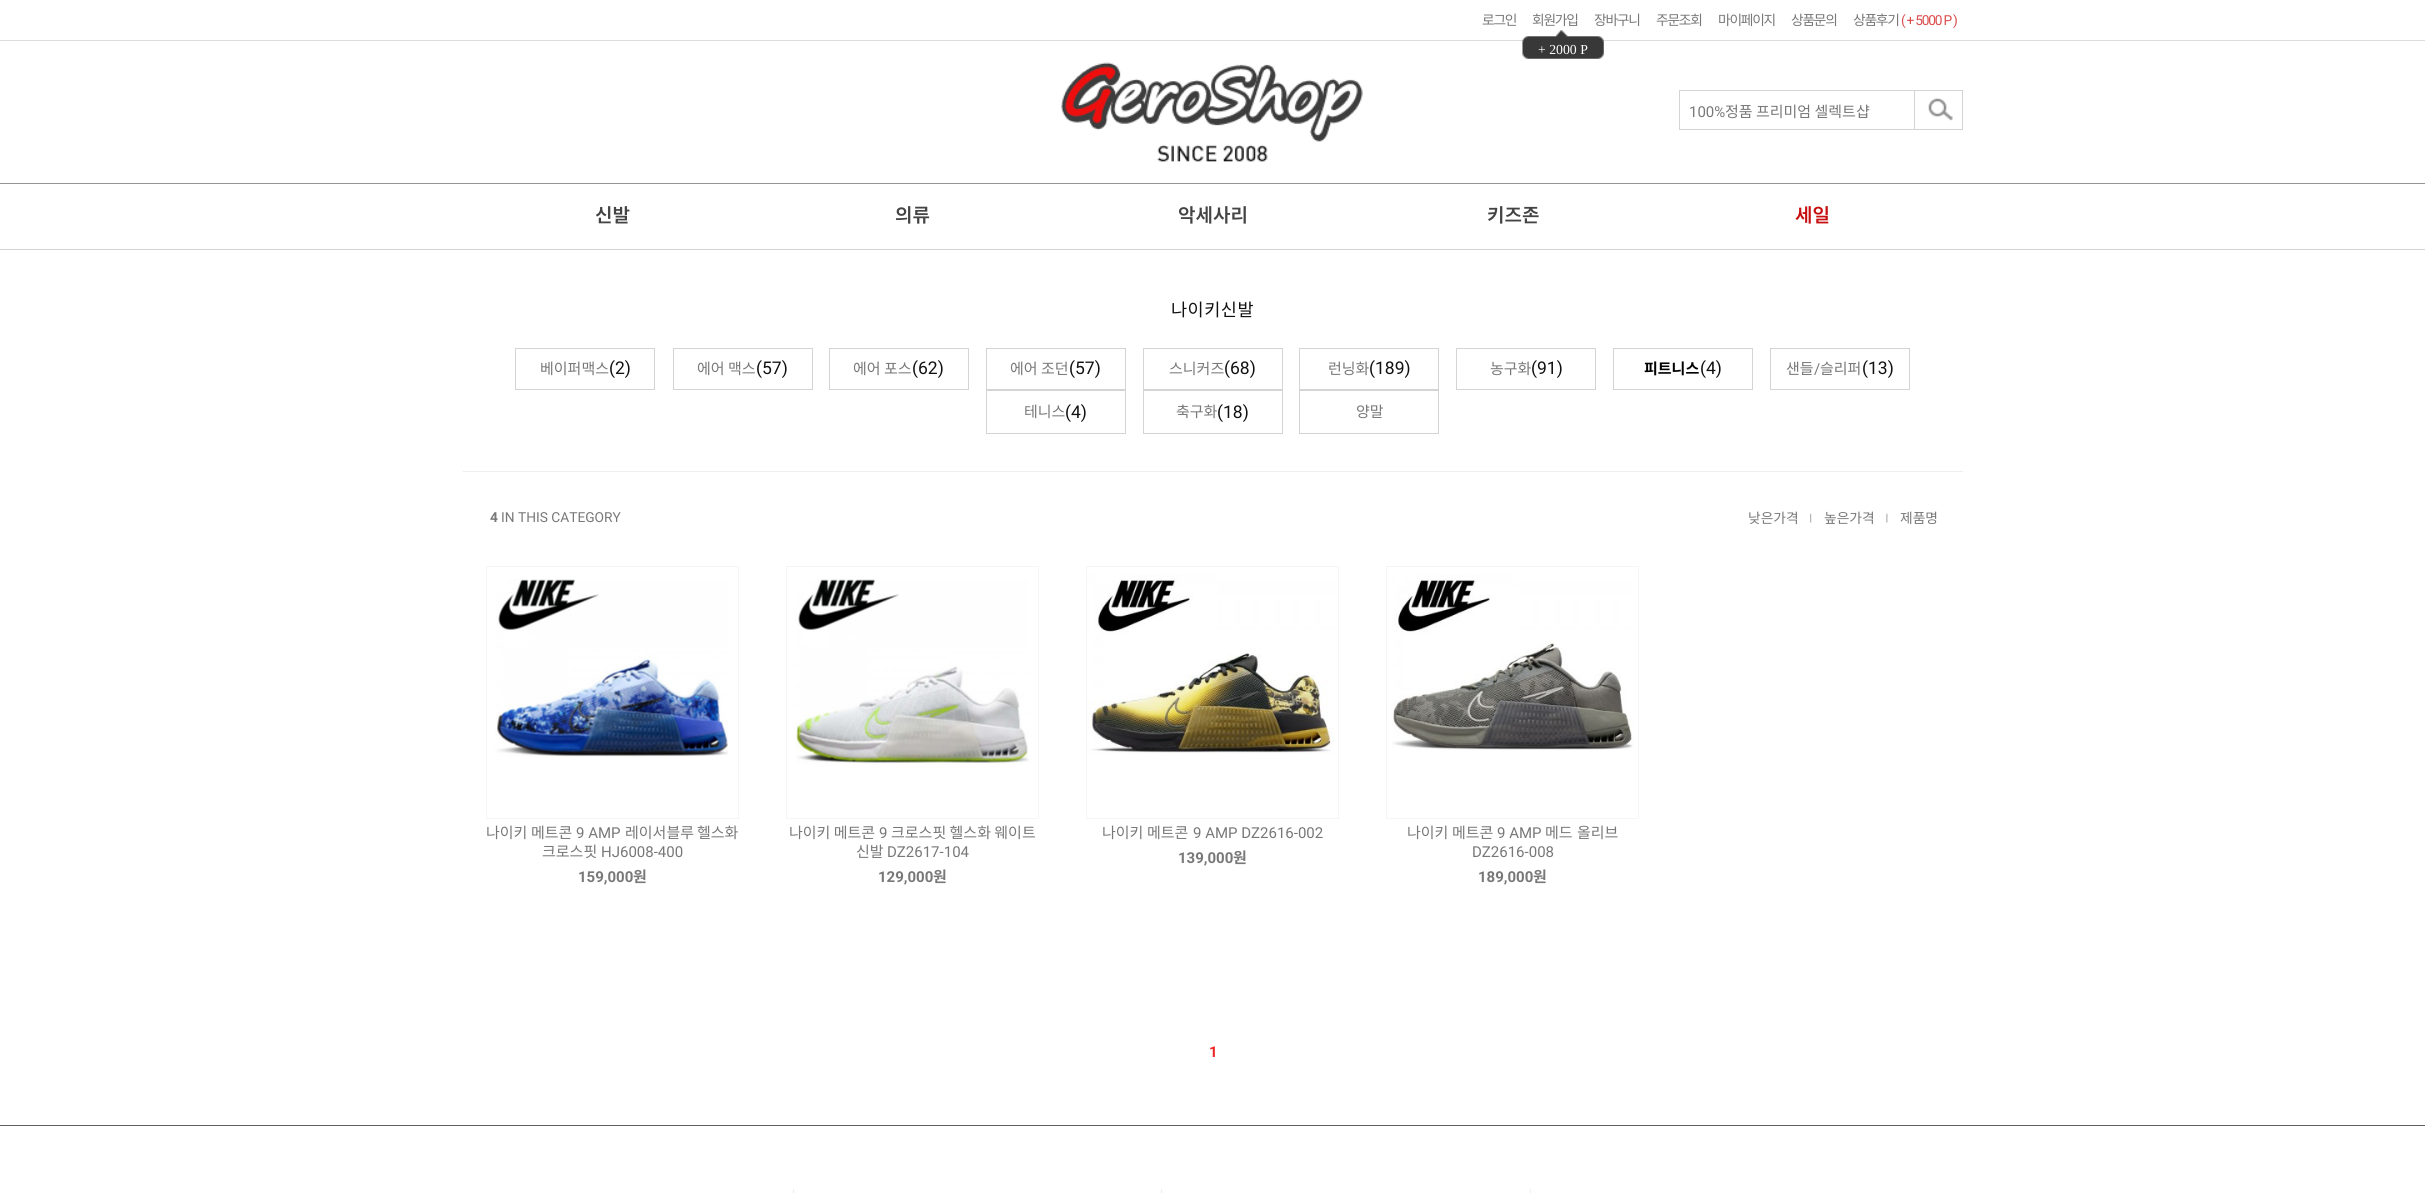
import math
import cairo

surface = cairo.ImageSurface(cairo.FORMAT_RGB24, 2425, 1193)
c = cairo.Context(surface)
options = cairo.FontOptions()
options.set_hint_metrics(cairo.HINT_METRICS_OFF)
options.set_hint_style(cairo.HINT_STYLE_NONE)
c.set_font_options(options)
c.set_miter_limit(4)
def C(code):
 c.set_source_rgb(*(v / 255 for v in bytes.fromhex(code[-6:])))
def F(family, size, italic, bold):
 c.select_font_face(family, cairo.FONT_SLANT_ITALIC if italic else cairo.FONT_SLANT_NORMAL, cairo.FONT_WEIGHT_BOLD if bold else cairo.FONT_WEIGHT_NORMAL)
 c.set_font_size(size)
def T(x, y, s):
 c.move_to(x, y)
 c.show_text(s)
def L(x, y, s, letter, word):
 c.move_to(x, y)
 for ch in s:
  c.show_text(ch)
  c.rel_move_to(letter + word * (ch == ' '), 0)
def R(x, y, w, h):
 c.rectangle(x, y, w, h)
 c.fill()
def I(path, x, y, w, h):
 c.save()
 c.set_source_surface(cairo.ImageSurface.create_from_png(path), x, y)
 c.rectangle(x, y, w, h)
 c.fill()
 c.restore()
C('ffffff')
c.paint()
C('dcdcdc')
R(0,40,2425,1)
F('Noto Sans KR',13.75,0,0)
C('787878')
L(1482,25,'로그인',-1.25,0)
L(1532,25,'회원가입',-1.25,0)
I('1.png',1522,30,82,29)
F('Liberation Serif',13.75,0,0)
C('ffffff')
T(1538,54,'+ 2000 P')
F('Noto Sans KR',13.75,0,0)
C('787878')
L(1594,25,'장바구니',-1.25,0)
L(1656,25,'주문조회',-1.25,0)
L(1718,25,'마이페이지',-1.25,0)
L(1791,25,'상품문의',-1.25,0)
L(1853,25,'상품후기',-1.25,0)
F('Roboto',13.75,0,0)
C('da4e4e')
L(1901,25,'( + 5000 P )',-1.25,0)
I('2.png',1061,62,302,100)
c.rectangle(1679.5,90.5,283,39)
C('d4d4d4')
c.set_line_width(1)
c.stroke()
R(1914,91,1,38)
F('Roboto',15,0,0)
C('787878')
T(1689,117,'100%')
F('Noto Sans KR',15,0,0)
T(1725,117,'정품 프리미엄 셀렉트샵')
I('3.png',1928,98,25,23)
C('949494')
R(0,183,2425,1)
C('d4d4d4')
R(0,249,2425,1)
F('Noto Sans KR SemiBold',19,0,0)
C('444444')
T(595,222,'신발')
T(895,222,'의류')
T(1178,222,'악세사리')
T(1487,222,'키즈존')
C('c70f0f')
T(1795,222,'세일')
F('Noto Sans KR',17.5,0,0)
C('111111')
L(1171,316,'나이키신발',.5,0)
c.rectangle(515.5,348.5,139,41)
C('d4d4d4')
c.stroke()
F('Noto Sans KR',15,0,0)
C('787878')
T(540,374,'베이퍼맥스')
F('Roboto',17.5,0,0)
C('111111')
T(609,374,'(2)')
c.rectangle(673.5,348.5,139,41)
C('d4d4d4')
c.stroke()
F('Noto Sans KR',15,0,0)
C('787878')
T(697,374,'에어 맥스')
F('Roboto',17.5,0,0)
C('111111')
T(756,374,'(57)')
c.rectangle(829.5,348.5,139,41)
C('d4d4d4')
c.stroke()
F('Noto Sans KR',15,0,0)
C('787878')
T(853,374,'에어 포스')
F('Roboto',17.5,0,0)
C('111111')
T(912,374,'(62)')
c.rectangle(986.5,348.5,139,41)
C('d4d4d4')
c.stroke()
F('Noto Sans KR',15,0,0)
C('787878')
T(1010,374,'에어 조던')
F('Roboto',17.5,0,0)
C('111111')
T(1069,374,'(57)')
c.rectangle(1143.5,348.5,139,41)
C('d4d4d4')
c.stroke()
F('Noto Sans KR',15,0,0)
C('787878')
T(1169,374,'스니커즈')
F('Roboto',17.5,0,0)
C('111111')
T(1224,374,'(68)')
c.rectangle(1299.5,348.5,139,41)
C('d4d4d4')
c.stroke()
F('Noto Sans KR',15,0,0)
C('787878')
T(1328,374,'런닝화')
F('Roboto',17.5,0,0)
C('111111')
T(1369,374,'(189)')
c.rectangle(1456.5,348.5,139,41)
C('d4d4d4')
c.stroke()
F('Noto Sans KR',15,0,0)
C('787878')
T(1490,374,'농구화')
F('Roboto',17.5,0,0)
C('111111')
T(1531,374,'(91)')
c.rectangle(1613.5,348.5,139,41)
C('d4d4d4')
c.stroke()
F('Noto Sans KR',15,0,1)
C('000000')
T(1644,374,'피트니스')
F('Roboto',17.5,0,0)
C('111111')
T(1700,374,'(4)')
c.rectangle(1770.5,348.5,139,41)
C('d4d4d4')
c.stroke()
F('Noto Sans KR',15,0,0)
C('787878')
T(1786,374,'샌들')
F('Roboto',15,0,0)
T(1814,374,'/')
F('Noto Sans KR',15,0,0)
T(1820,374,'슬리퍼')
F('Roboto',17.5,0,0)
C('111111')
T(1862,374,'(13)')
c.rectangle(986.5,390.5,139,43)
C('d4d4d4')
c.stroke()
F('Noto Sans KR',15,0,0)
C('787878')
T(1024,417,'테니스')
F('Roboto',17.5,0,0)
C('111111')
T(1065,418,'(4)')
c.rectangle(1143.5,390.5,139,43)
C('d4d4d4')
c.stroke()
F('Noto Sans KR',15,0,0)
C('787878')
T(1176,417,'축구화')
F('Roboto',17.5,0,0)
C('111111')
T(1217,418,'(18)')
c.rectangle(1299.5,390.5,139,43)
C('d4d4d4')
c.stroke()
F('Noto Sans KR',15,0,0)
C('787878')
T(1356,417,'양말')
C('eeeeee')
R(463,471,1500,1)
F('Roboto',13.75,0,1)
C('787878')
T(490,522,'4')
F('Roboto',13.75,0,0)
T(501,522,'IN THIS CATEGORY')
I('4.png',1810,513,2,10)
F('Noto Sans KR',13.75,0,0)
T(1748,523,'낮은가격')
I('5.png',1886,513,2,10)
T(1824,523,'높은가격')
T(1900,523,'제품명')
c.rectangle(486.5,566.5,252,252)
C('f5f5f5')
c.stroke()
I('6.png',495,579,233,178)
F('Noto Sans KR',15,0,0)
C('787878')
T(486,838,'나이키')
T(531,838,'메트콘')
F('Roboto',15,0,0)
T(576,838,'9 AMP')
F('Noto Sans KR',15,0,0)
T(625,838,'레이서블루')
T(697,838,'헬스화')
T(542,857,'크로스핏')
F('Roboto',15,0,0)
T(601,857,'HJ6008-400')
F('Roboto',15,0,1)
T(578,882,'159,000')
F('Noto Sans KR',15,0,1)
T(633,882,'원')
c.rectangle(786.5,566.5,252,252)
C('f5f5f5')
c.stroke()
I('7.png',795,579,234,186)
F('Noto Sans KR',15,0,0)
C('787878')
T(789,838,'나이키 메트콘')
F('Roboto',15,0,0)
T(879,838,'9')
F('Noto Sans KR',15,0,0)
T(891,838,'크로스핏 헬스화 웨이트')
T(856,857,'신발')
F('Roboto',15,0,0)
T(887,857,'DZ2617-104')
F('Roboto',15,0,1)
T(878,882,'129,000')
F('Noto Sans KR',15,0,1)
T(933,882,'원')
c.rectangle(1086.5,566.5,252,252)
C('f5f5f5')
c.stroke()
I('8.png',1087,574,248,180)
F('Noto Sans KR',15,0,0)
C('787878')
T(1102,838,'나이키')
T(1147,838,'메트콘')
F('Roboto',15,0,0)
T(1193,838,'9 AMP DZ2616-002')
F('Roboto',15,0,1)
T(1178,863,'139,000')
F('Noto Sans KR',15,0,1)
T(1233,863,'원')
c.rectangle(1386.5,566.5,252,252)
C('f5f5f5')
c.stroke()
I('9.png',1391,574,242,176)
F('Noto Sans KR',15,0,0)
C('787878')
T(1407,838,'나이키')
T(1452,838,'메트콘')
F('Roboto',15,0,0)
T(1497,838,'9 AMP')
F('Noto Sans KR',15,0,0)
T(1545,838,'메드')
T(1577,838,'올리브')
F('Roboto',15,0,0)
T(1472,857,'DZ2616-008')
F('Roboto',15,0,1)
T(1478,882,'189,000')
F('Noto Sans KR',15,0,1)
T(1533,882,'원')
F('Roboto',15,0,1)
C('ec2626')
L(1209,1057,'1',-1.25,0)
C('5f5f5f')
R(0,1125,2425,1)
C('eeeeee')
R(793,1189,1,4)
R(1161,1189,1,4)
R(1530,1189,1,4)
surface.write_to_png('o.png')
